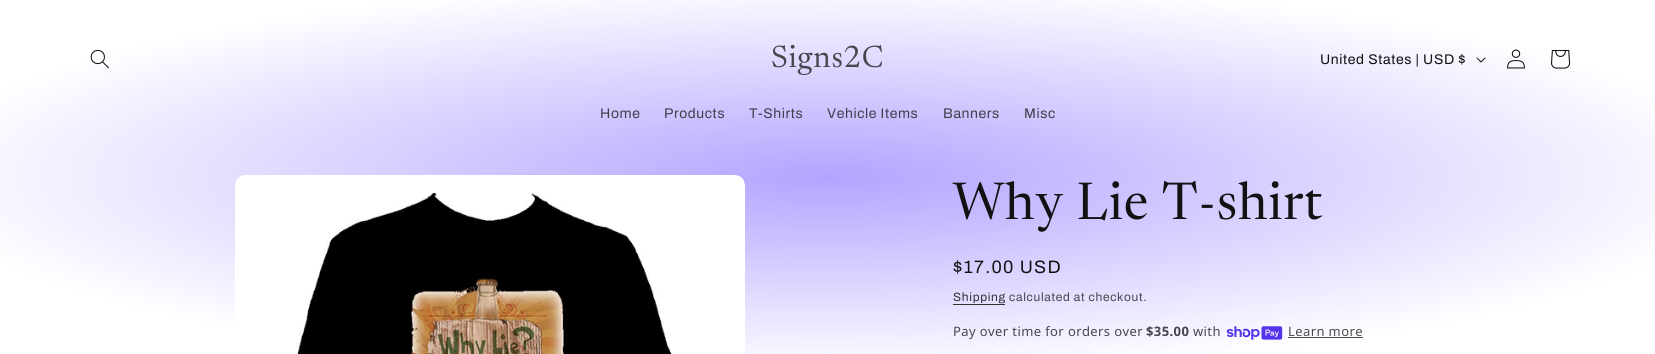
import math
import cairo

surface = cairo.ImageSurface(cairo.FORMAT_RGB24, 1655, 354)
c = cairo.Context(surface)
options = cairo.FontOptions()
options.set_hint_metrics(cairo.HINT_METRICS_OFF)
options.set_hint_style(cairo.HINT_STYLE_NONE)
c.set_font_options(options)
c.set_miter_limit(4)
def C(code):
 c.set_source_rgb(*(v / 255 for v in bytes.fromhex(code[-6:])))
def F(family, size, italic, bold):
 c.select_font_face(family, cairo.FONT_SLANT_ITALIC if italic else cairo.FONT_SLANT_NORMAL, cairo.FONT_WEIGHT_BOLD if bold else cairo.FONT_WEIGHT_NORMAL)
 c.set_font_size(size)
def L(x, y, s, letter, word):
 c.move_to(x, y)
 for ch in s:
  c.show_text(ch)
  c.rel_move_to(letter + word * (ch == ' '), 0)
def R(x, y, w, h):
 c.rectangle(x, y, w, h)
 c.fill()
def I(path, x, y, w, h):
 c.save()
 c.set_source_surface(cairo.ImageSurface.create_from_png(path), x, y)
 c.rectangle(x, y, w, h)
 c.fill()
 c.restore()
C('ffffff')
c.paint()
gradient = cairo.RadialGradient(0,0,0,0,0,1)
gradient.set_matrix(cairo.Matrix(1 / 1170, 0, 0, 1 / 250, -1 * 828 / 1170, -1 * 177 / 250))
gradient.add_color_stop_rgba(0,0.702,0.643,1,1)
gradient.add_color_stop_rgba(.79,1,1,1,1)
gradient.add_color_stop_rgba(.97,1,1,1,1)
c.set_source(gradient)
R(0,0,1655,354)
gradient = cairo.RadialGradient(0,0,0,0,0,1)
gradient.set_matrix(cairo.Matrix(1 / 1170, 0, 0, 1 / 250, -1 * 828 / 1170, -1 * 177 / 250))
gradient.add_color_stop_rgba(0,0.227,0.216,0.302,1)
gradient.add_color_stop_rgba(.79,0.302,0.302,0.302,1)
gradient.add_color_stop_rgba(.97,0.302,0.302,0.302,1)
c.set_source(gradient)
R(1288,337,75,1)
I('1.png',90,49,19,20)
F('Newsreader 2',31,0,0)
C('47464d')
L(771,67,'Signs2C',.75,0)
F('Archivo',14,0,0)
C('121212')
L(1320,64,'United States | USD $',.6,0)
I('2.png',1476,57,10,6)
I('3.png',1507,49,18,20)
I('4.png',1551,50,20,19)
C('423f4d')
L(600,118,'Home',.6,0)
L(664,118,'Products',.6,0)
L(749,118,'T-Shirts',.6,0)
L(827,118,'Vehicle Items',.6,0)
L(943,118,'Banners',.6,0)
L(1024,118,'Misc',.6,0)
I('5.png',235,175,510,179)
F('Newsreader',52,0,0)
C('121212')
L(953,219,'Why Lie T-shirt',.75,0)
F('Archivo',18,0,0)
L(953,273,'$17.00 USD',1.25,0)
F('Archivo',12,0,0)
C('313136')
L(953,301,'Shipping',.7,0)
C('323136')
R(953,304,52,1)
C('47464d')
L(1009,301,'calculated at checkout.',.7,0)
F('Noto Sans',13,0,0)
L(953,336,'Pay over time for orders over',.4,0)
F('Noto Sans',13,0,1)
L(1146,336,'$35.00',.4,0)
F('Noto Sans',13,0,0)
L(1193,336,'with',.4,0)
I('6.png',1226,326,57,14)
C('4c4c4d')
L(1288,336,'Learn more',.4,0)
surface.write_to_png('o.png')
